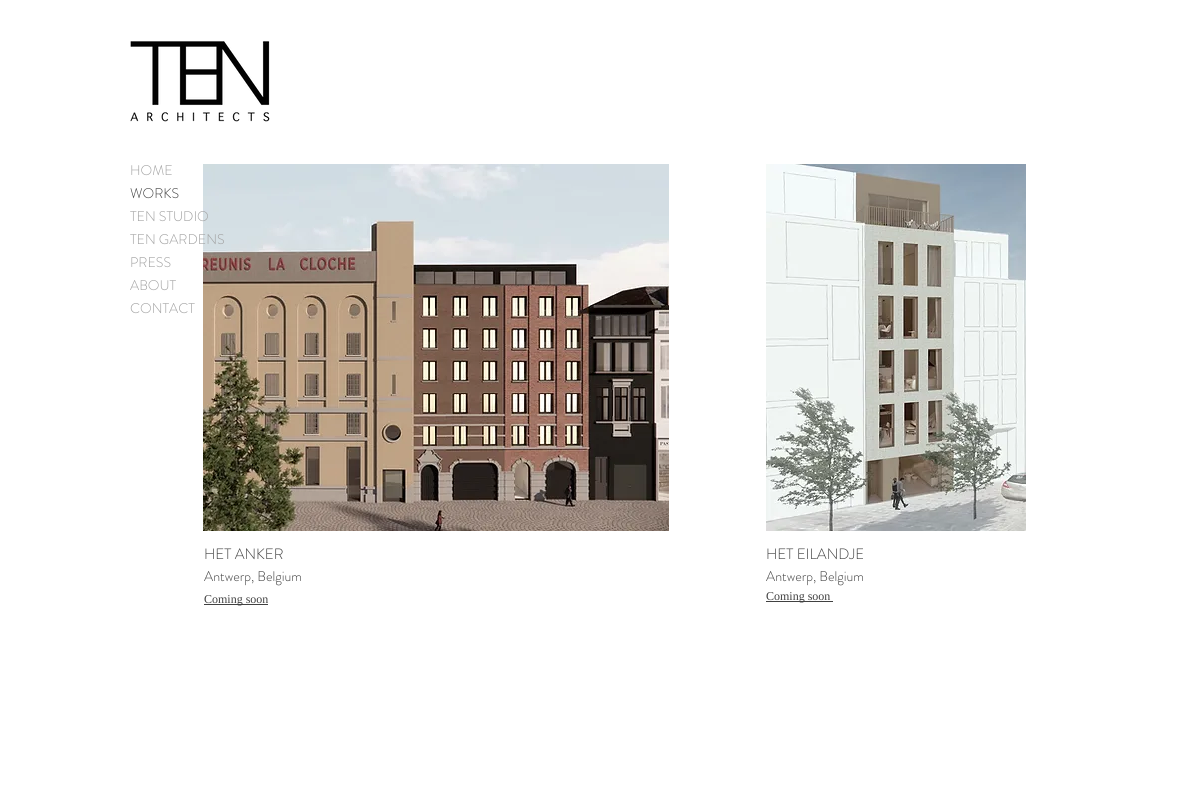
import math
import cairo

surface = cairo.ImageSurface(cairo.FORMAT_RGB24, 1186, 792)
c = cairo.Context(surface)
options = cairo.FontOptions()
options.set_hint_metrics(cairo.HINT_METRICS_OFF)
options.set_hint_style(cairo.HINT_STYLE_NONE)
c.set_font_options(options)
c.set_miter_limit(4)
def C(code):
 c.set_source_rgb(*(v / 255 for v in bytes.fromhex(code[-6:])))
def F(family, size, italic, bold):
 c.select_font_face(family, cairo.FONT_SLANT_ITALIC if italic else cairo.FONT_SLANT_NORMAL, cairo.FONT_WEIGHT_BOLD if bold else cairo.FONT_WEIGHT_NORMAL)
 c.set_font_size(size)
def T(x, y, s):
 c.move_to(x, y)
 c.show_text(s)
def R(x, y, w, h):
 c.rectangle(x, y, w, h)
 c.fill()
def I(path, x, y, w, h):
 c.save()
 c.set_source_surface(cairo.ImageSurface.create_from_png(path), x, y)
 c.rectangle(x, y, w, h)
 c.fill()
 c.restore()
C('ffffff')
c.paint()
I('1.png',130,41,140,81)
F('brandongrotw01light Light',14,0,0)
C('a0a0a0')
T(130,175,'HOME')
C('414141')
T(130,198,'WORKS')
I('2.png',203,164,466,367)
C('a0a0a0')
T(130,221,'TEN STUDIO')
T(130,244,'TEN GARDENS')
T(130,267,'PRESS')
T(130,290,'ABOUT')
T(130,313,'CONTACT')
I('3.png',766,164,260,367)
F('brandongrotw01light Light',15,0,0)
C('414141')
T(204,559,'HET ANKER')
F('brandongrotw01light Light',14,0,0)
T(204,581,'Antwerp, Belgium')
R(204,604,64,1)
F('Liberation Serif',12,0,0)
T(204,603,'Coming soon')
F('brandongrotw01light Light',15,0,0)
T(766,559,'HET EILANDJE')
F('brandongrotw01light Light',14,0,0)
T(766,581,'Antwerp, Belgium')
R(766,601,67,1)
F('Liberation Serif',12,0,0)
T(766,600,'Coming soon')
surface.write_to_png('o.png')
